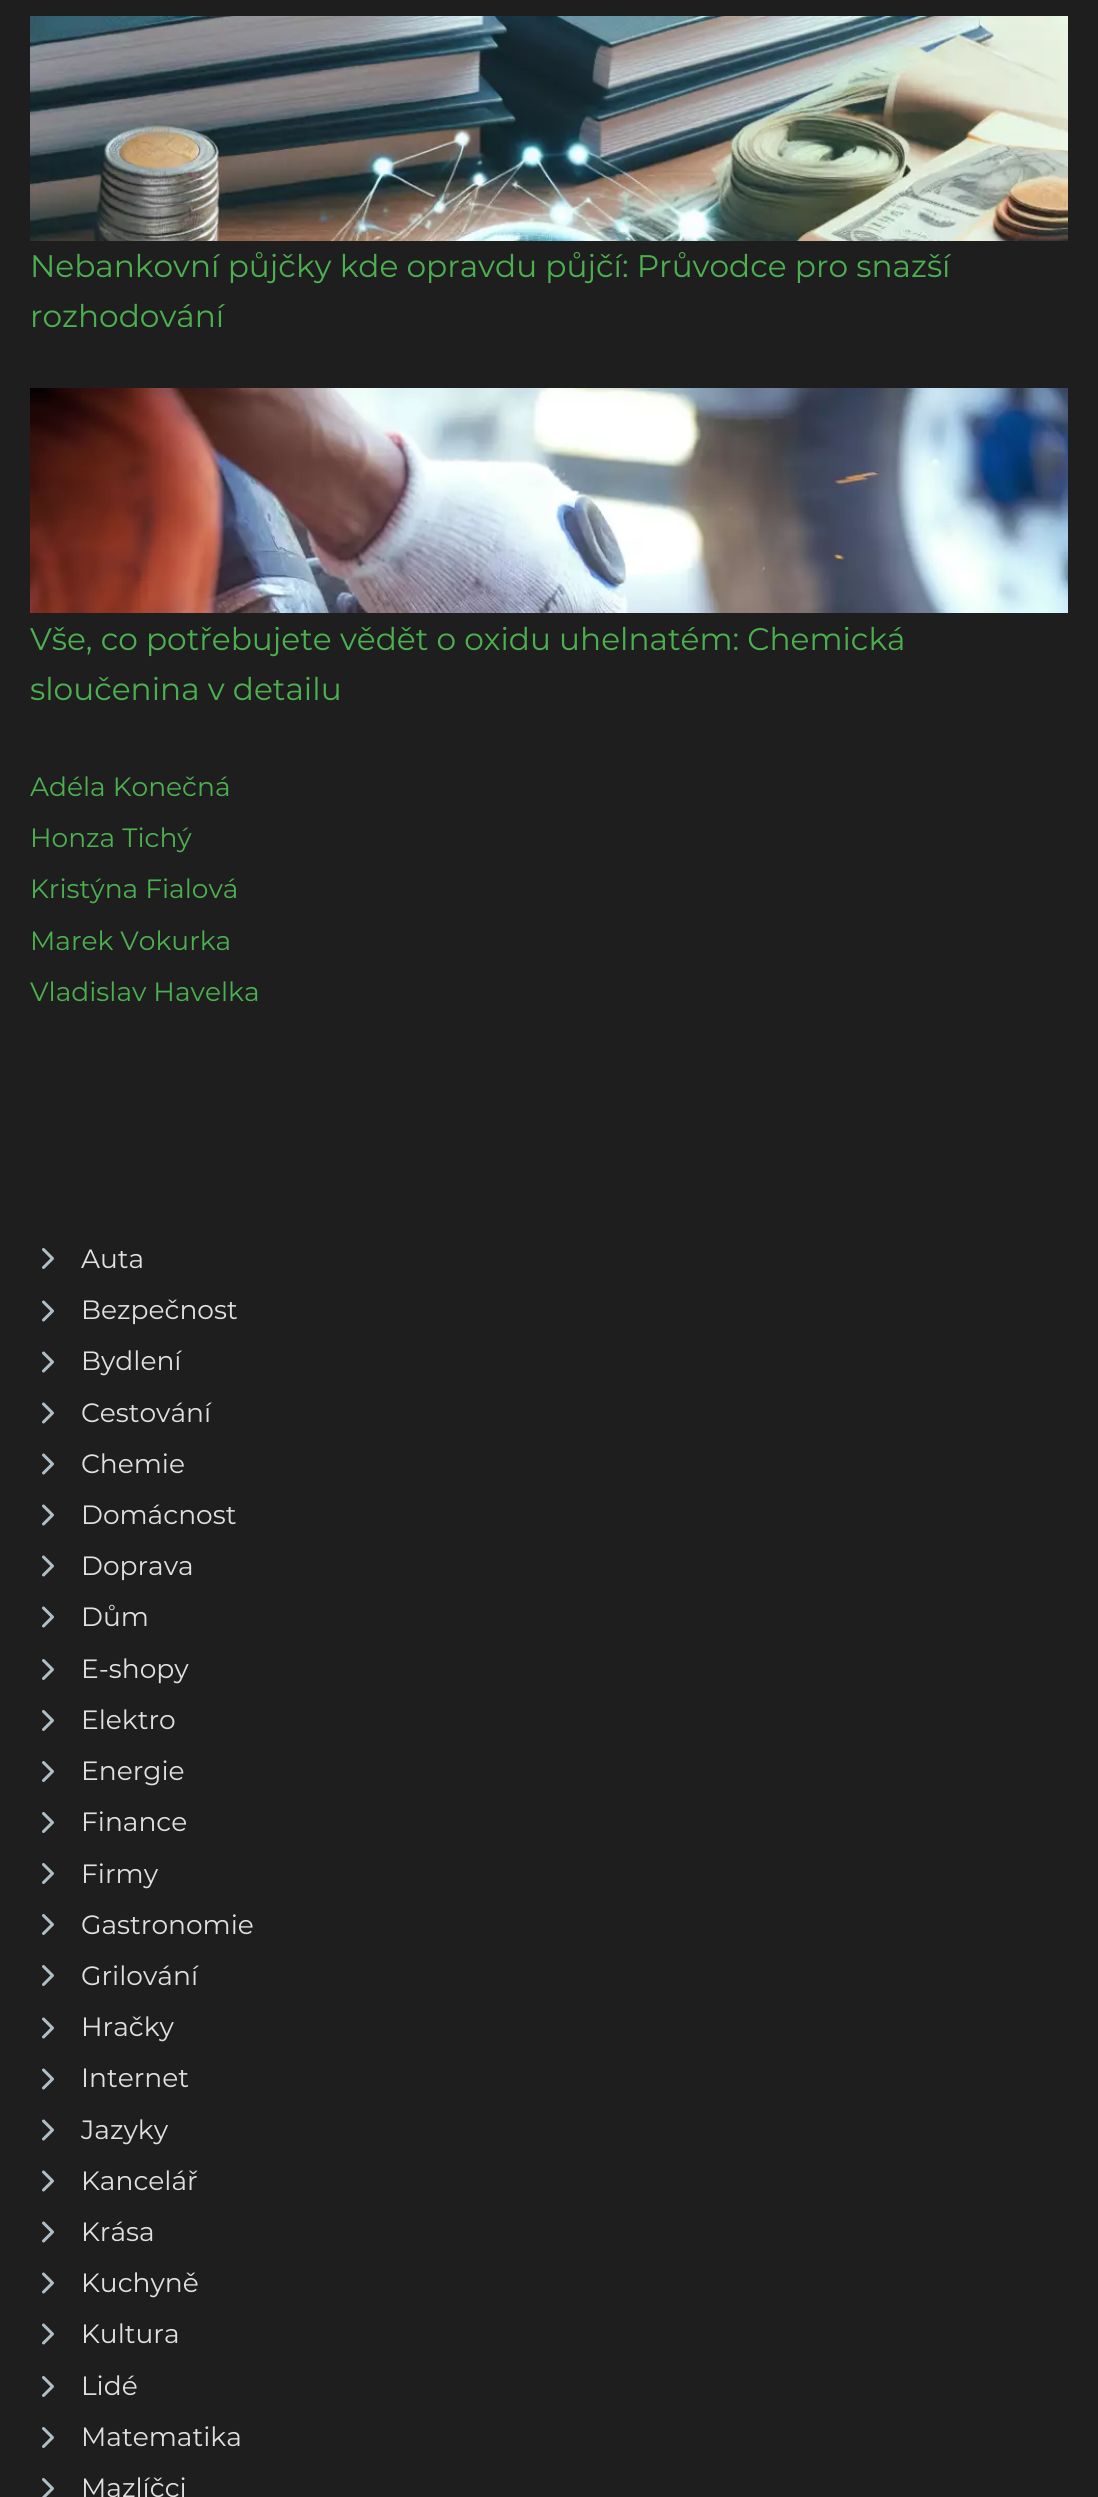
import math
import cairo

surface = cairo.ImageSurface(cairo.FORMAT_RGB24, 1098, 2497)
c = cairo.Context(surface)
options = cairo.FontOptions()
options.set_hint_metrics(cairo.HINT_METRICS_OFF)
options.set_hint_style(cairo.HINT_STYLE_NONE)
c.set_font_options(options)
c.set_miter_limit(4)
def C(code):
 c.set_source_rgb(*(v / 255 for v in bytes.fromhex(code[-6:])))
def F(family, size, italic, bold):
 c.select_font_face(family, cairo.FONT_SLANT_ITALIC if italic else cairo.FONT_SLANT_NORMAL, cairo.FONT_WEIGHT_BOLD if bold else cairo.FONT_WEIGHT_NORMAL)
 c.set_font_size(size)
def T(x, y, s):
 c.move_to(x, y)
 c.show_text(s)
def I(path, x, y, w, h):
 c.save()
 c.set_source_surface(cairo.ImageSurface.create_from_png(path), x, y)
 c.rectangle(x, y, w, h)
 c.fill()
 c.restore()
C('1e1e1e')
c.paint()
I('1.png',30,16,1038,225)
F('Montserrat Thin',31.2,0,0)
C('4caf50')
T(30,277,'Nebankovní půjčky kde opravdu půjčí: Průvodce pro snazší')
T(30,327,'rozhodování')
I('2.png',30,388,1038,225)
T(30,650,'Vše, co potřebujete vědět o oxidu uhelnatém: Chemická')
T(30,700,'sloučenina v detailu')
F('Montserrat Thin',26.5,0,0)
T(30,796,'Adéla Konečná')
T(30,847,'Honza Tichý')
T(30,898,'Kristýna Fialová')
T(30,950,'Marek Vokurka')
T(30,1001,'Vladislav Havelka')
c.new_path()
c.move_to(43.5,1267.5)
c.line_to(52.5,1258.5)
c.line_to(43.5,1249.5)
C('b0bec5')
c.set_line_width(3)
c.set_line_cap(cairo.LINE_CAP_ROUND)
c.set_line_join(cairo.LINE_JOIN_ROUND)
c.stroke()
C('e0e0e0')
T(81,1268,'Auta')
c.new_path()
c.move_to(43.5,1320)
c.line_to(52.5,1311)
c.line_to(43.5,1302)
C('b0bec5')
c.stroke()
C('e0e0e0')
T(81,1319,'Bezpečnost')
c.new_path()
c.move_to(43.5,1371)
c.line_to(52.5,1362)
c.line_to(43.5,1353)
C('b0bec5')
c.stroke()
C('e0e0e0')
T(81,1370,'Bydlení')
c.new_path()
c.move_to(43.5,1422)
c.line_to(52.5,1413)
c.line_to(43.5,1404)
C('b0bec5')
c.stroke()
C('e0e0e0')
T(81,1422,'Cestování')
c.new_path()
c.move_to(43.5,1473)
c.line_to(52.5,1464)
c.line_to(43.5,1455)
C('b0bec5')
c.stroke()
C('e0e0e0')
T(81,1473,'Chemie')
c.new_path()
c.move_to(43.5,1524)
c.line_to(52.5,1515)
c.line_to(43.5,1506)
C('b0bec5')
c.stroke()
C('e0e0e0')
T(81,1524,'Domácnost')
c.new_path()
c.move_to(43.5,1575)
c.line_to(52.5,1566)
c.line_to(43.5,1557)
C('b0bec5')
c.stroke()
C('e0e0e0')
T(81,1575,'Doprava')
c.new_path()
c.move_to(43.5,1626)
c.line_to(52.5,1617)
c.line_to(43.5,1608)
C('b0bec5')
c.stroke()
C('e0e0e0')
T(81,1626,'Dům')
c.new_path()
c.move_to(43.5,1678.5)
c.line_to(52.5,1669.5)
c.line_to(43.5,1660.5)
C('b0bec5')
c.stroke()
C('e0e0e0')
T(81,1678,'E-shopy')
c.new_path()
c.move_to(43.5,1729.5)
c.line_to(52.5,1720.5)
c.line_to(43.5,1711.5)
C('b0bec5')
c.stroke()
C('e0e0e0')
T(81,1729,'Elektro')
c.new_path()
c.move_to(43.5,1780.5)
c.line_to(52.5,1771.5)
c.line_to(43.5,1762.5)
C('b0bec5')
c.stroke()
C('e0e0e0')
T(81,1780,'Energie')
c.new_path()
c.move_to(43.5,1831.5)
c.line_to(52.5,1822.5)
c.line_to(43.5,1813.5)
C('b0bec5')
c.stroke()
C('e0e0e0')
T(81,1831,'Finance')
c.new_path()
c.move_to(43.5,1882.5)
c.line_to(52.5,1873.5)
c.line_to(43.5,1864.5)
C('b0bec5')
c.stroke()
C('e0e0e0')
T(81,1883,'Firmy')
c.new_path()
c.move_to(43.5,1933.5)
c.line_to(52.5,1924.5)
c.line_to(43.5,1915.5)
C('b0bec5')
c.stroke()
C('e0e0e0')
T(81,1934,'Gastronomie')
c.new_path()
c.move_to(43.5,1984.5)
c.line_to(52.5,1975.5)
c.line_to(43.5,1966.5)
C('b0bec5')
c.stroke()
C('e0e0e0')
T(81,1985,'Grilování')
c.new_path()
c.move_to(43.5,2037)
c.line_to(52.5,2028)
c.line_to(43.5,2019)
C('b0bec5')
c.stroke()
C('e0e0e0')
T(81,2036,'Hračky')
c.new_path()
c.move_to(43.5,2088)
c.line_to(52.5,2079)
c.line_to(43.5,2070)
C('b0bec5')
c.stroke()
C('e0e0e0')
T(81,2087,'Internet')
c.new_path()
c.move_to(43.5,2139)
c.line_to(52.5,2130)
c.line_to(43.5,2121)
C('b0bec5')
c.stroke()
C('e0e0e0')
T(81,2139,'Jazyky')
c.new_path()
c.move_to(43.5,2190)
c.line_to(52.5,2181)
c.line_to(43.5,2172)
C('b0bec5')
c.stroke()
C('e0e0e0')
T(81,2190,'Kancelář')
c.new_path()
c.move_to(43.5,2241)
c.line_to(52.5,2232)
c.line_to(43.5,2223)
C('b0bec5')
c.stroke()
C('e0e0e0')
T(81,2241,'Krása')
c.new_path()
c.move_to(43.5,2292)
c.line_to(52.5,2283)
c.line_to(43.5,2274)
C('b0bec5')
c.stroke()
C('e0e0e0')
T(81,2292,'Kuchyně')
c.new_path()
c.move_to(43.5,2343)
c.line_to(52.5,2334)
c.line_to(43.5,2325)
C('b0bec5')
c.stroke()
C('e0e0e0')
T(81,2343,'Kultura')
c.new_path()
c.move_to(43.5,2395.5)
c.line_to(52.5,2386.5)
c.line_to(43.5,2377.5)
C('b0bec5')
c.stroke()
C('e0e0e0')
T(81,2395,'Lidé')
c.new_path()
c.move_to(43.5,2446.5)
c.line_to(52.5,2437.5)
c.line_to(43.5,2428.5)
C('b0bec5')
c.stroke()
C('e0e0e0')
T(81,2446,'Matematika')
c.new_path()
c.move_to(43.5,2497.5)
c.line_to(52.5,2488.5)
c.line_to(43.5,2479.5)
C('b0bec5')
c.stroke()
C('e0e0e0')
T(81,2497,'Mazlíčci')
surface.write_to_png('o.png')
